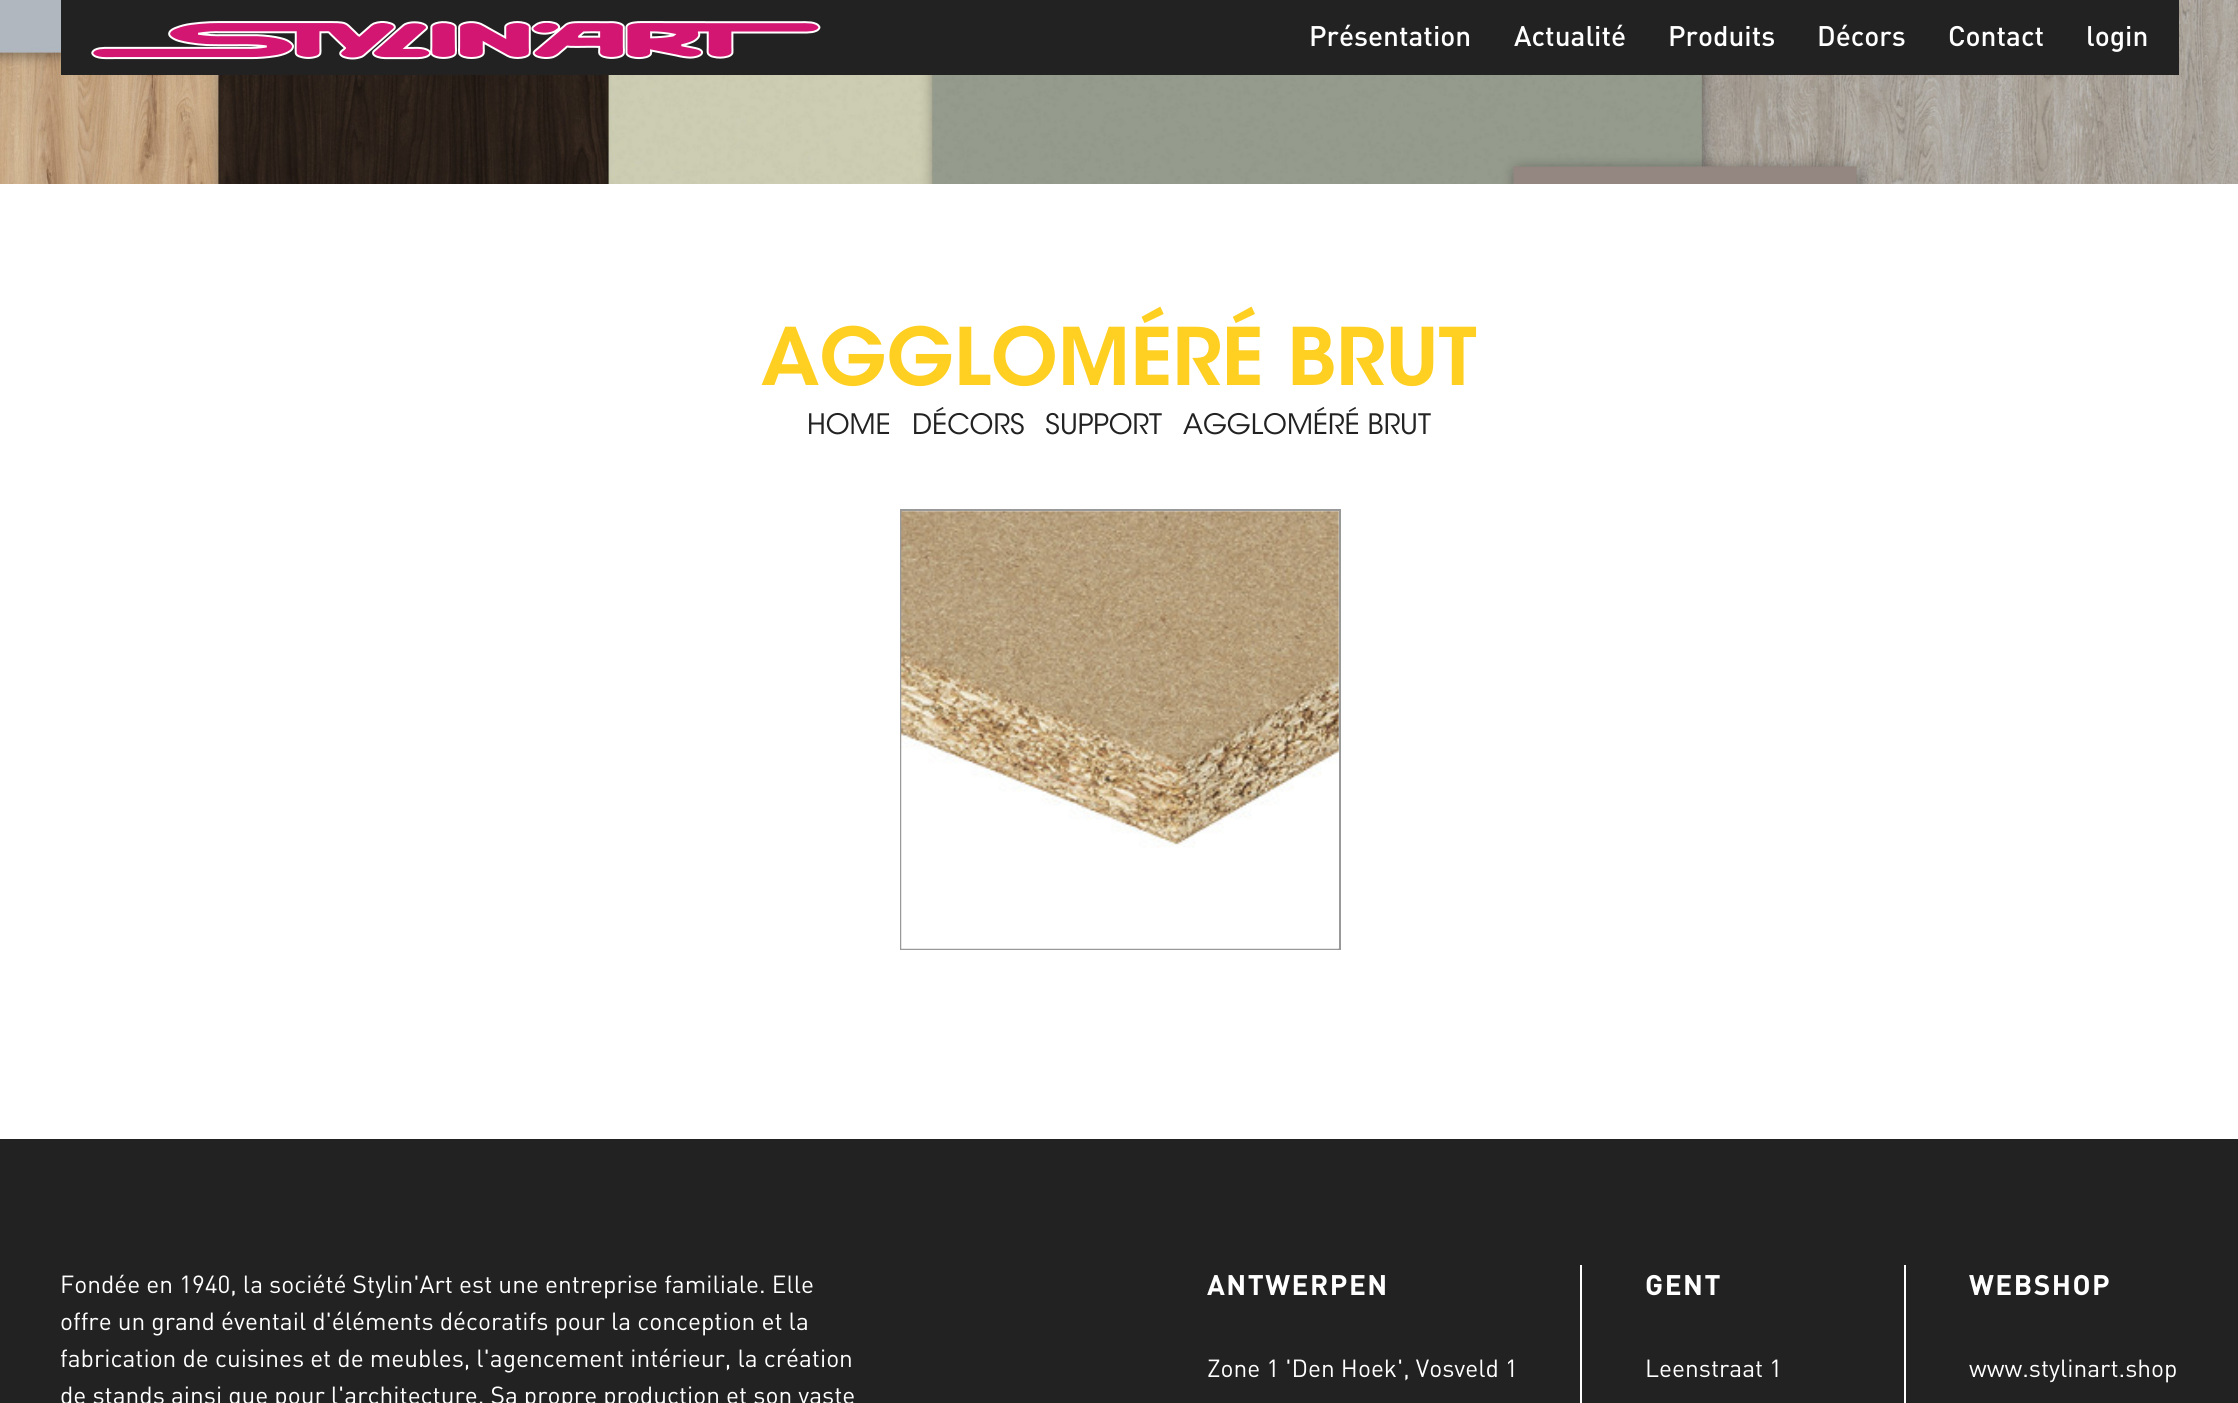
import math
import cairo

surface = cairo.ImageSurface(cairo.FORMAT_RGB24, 2238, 1403)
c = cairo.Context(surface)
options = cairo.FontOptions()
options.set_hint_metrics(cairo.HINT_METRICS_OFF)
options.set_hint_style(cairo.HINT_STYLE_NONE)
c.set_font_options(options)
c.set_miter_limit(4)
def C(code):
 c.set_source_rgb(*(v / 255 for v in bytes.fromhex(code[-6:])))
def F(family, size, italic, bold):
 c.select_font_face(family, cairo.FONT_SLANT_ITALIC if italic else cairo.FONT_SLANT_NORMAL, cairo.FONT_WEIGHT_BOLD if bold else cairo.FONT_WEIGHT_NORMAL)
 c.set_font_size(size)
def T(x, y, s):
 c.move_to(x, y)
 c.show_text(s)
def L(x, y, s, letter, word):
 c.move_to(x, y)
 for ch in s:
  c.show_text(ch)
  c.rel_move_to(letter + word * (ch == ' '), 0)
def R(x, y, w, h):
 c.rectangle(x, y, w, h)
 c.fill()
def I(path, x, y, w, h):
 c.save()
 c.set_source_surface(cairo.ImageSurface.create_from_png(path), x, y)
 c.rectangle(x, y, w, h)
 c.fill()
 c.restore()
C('ffffff')
c.paint()
I('1.png',0,0,2238,184)
C('222222')
R(61,0,2118,75)
I('2.png',91,21,730,39)
F('DIN Medium',28,0,0)
C('ffffff')
T(1309,46,'Présentation')
T(1514,46,'Actualité')
T(1668,46,'Produits')
T(1817,46,'Décors')
T(1948,46,'Contact')
T(2086,46,'login')
F('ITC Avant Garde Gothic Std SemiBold',78.75,0,0)
C('ffcf21')
T(761,385,'AGGLOMÉRÉ BRUT')
F('ITC Avant Garde Gothic Std Light',28,0,0)
C('222222')
T(807,434,'HOME')
T(912,434,'DÉCORS')
T(1045,434,'SUPPORT')
T(1183,434,'AGGLOMÉRÉ BRUT')
c.rectangle(901,510,439,439)
C('999999')
c.stroke()
I('3.png',901,511,438,438)
C('222222')
R(0,1139,2238,264)
F('DIN',24.5,0,0)
C('ffffff')
T(60,1293,'Fondée en 1940, la société Stylin\'Art est une entreprise familiale. Elle')
T(60,1330,'offre un grand éventail d\'éléments décoratifs pour la conception et la')
T(60,1367,'fabrication de cuisines et de meubles, l\'agencement intérieur, la création')
T(60,1404,'de stands ainsi que pour l\'architecture. Sa propre production et son vaste')
F('DIN',28,0,1)
L(1207,1295,'ANTWERPEN',1.5,0)
F('DIN',24.5,0,0)
T(1207,1377,'Zone 1 \'Den Hoek\', Vosveld 1')
R(1580,1265,2,138)
F('DIN',28,0,1)
L(1645,1295,'GENT',1.5,0)
F('DIN',24.5,0,0)
T(1645,1377,'Leenstraat 1')
R(1904,1265,2,138)
F('DIN',28,0,1)
L(1969,1295,'WEBSHOP',1.5,0)
F('DIN',24.5,0,0)
T(1969,1377,'www.stylinart.shop')
surface.write_to_png('o.png')
